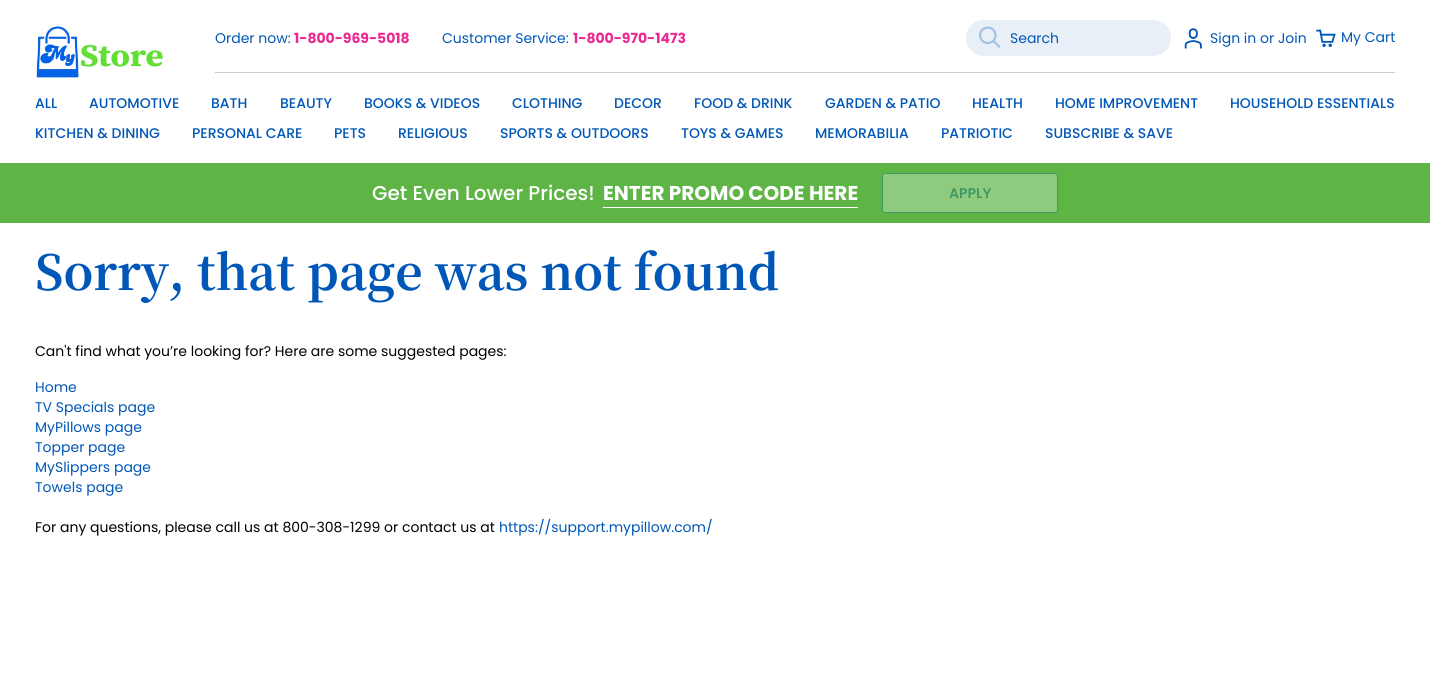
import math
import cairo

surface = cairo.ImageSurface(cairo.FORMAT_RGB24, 1430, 694)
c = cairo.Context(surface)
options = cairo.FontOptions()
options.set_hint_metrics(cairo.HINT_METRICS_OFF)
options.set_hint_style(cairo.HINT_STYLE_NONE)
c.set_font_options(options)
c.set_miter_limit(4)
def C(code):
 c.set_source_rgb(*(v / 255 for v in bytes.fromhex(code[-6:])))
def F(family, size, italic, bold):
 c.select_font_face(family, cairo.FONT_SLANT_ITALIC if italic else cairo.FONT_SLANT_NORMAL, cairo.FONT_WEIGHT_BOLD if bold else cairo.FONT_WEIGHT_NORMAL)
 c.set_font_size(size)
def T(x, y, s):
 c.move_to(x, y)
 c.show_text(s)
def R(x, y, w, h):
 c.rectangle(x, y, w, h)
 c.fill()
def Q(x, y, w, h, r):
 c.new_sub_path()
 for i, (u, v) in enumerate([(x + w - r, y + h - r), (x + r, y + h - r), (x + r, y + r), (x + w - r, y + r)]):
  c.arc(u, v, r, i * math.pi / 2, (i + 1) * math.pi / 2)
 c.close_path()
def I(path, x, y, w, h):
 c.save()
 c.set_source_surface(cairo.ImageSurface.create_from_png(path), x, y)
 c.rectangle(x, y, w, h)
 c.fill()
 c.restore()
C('ffffff')
c.paint()
I('1.png',35,23,130,56)
C('cccccc')
R(215,72,1180,1)
F('Poppins',14,0,0)
C('0057b7')
T(215,43,'Order now:')
F('Poppins',14,0,1)
C('ec2991')
T(294,43,'1-800-969-5018')
F('Poppins',14,0,0)
C('0057b7')
T(442,43,'Customer Service:')
F('Poppins',14,0,1)
C('ec2991')
T(573,43,'1-800-970-1473')
C('e8eff7')
Q(966,20,205,36,18)
c.fill()
I('2.png',979,26,22,22)
F('Poppins',14,0,0)
C('0057b7')
T(1010,43,'Search')
I('3.png',1184,28,18,21)
T(1210,43,'Sign in or Join')
I('4.png',1316,29,20,18)
T(1341,42,'My Cart')
F('Poppins Medium',14,0,0)
T(35,108,'ALL')
T(89,108,'AUTOMOTIVE')
T(211,108,'BATH')
T(280,108,'BEAUTY')
T(364,108,'BOOKS & VIDEOS')
T(512,108,'CLOTHING')
T(614,108,'DECOR')
T(694,108,'FOOD & DRINK')
T(825,108,'GARDEN & PATIO')
T(972,108,'HEALTH')
T(1055,108,'HOME IMPROVEMENT')
T(1230,108,'HOUSEHOLD ESSENTIALS')
T(35,138,'KITCHEN & DINING')
T(192,138,'PERSONAL CARE')
T(334,138,'PETS')
T(398,138,'RELIGIOUS')
T(500,138,'SPORTS & OUTDOORS')
T(681,138,'TOYS & GAMES')
T(815,138,'MEMORABILIA')
T(941,138,'PATRIOTIC')
T(1045,138,'SUBSCRIBE & SAVE')
C('5eb546')
R(0,163,1430,60)
F('Poppins Medium',20,0,0)
C('ffffff')
T(372,200,'Get Even Lower Prices!')
R(603,207,255,1)
F('Poppins',20,0,1)
T(603,200,'ENTER PROMO CODE HERE')
C('8ecb7e')
Q(882.5,173.5,175,39,2.5)
c.fill_preserve()
C('429968')
c.set_line_width(1)
c.stroke()
F('Poppins SemiBold',14,0,0)
T(949,198,'APPLY')
F('Noto Serif JP',48,0,1)
C('0057b7')
T(35,290,'Sorry, that page was not found')
F('Poppins',14,0,0)
C('000000')
T(35,356,'Can\'t find what you’re looking for? Here are some suggested pages:')
C('0057b7')
T(35,392,'Home')
T(35,412,'TV Specials page')
T(35,432,'MyPillows page')
T(35,452,'Topper page')
T(35,472,'MySlippers page')
T(35,492,'Towels page')
C('000000')
T(35,532,'For any questions, please call us at 800-308-1299 or contact us at')
C('0057b7')
T(499,532,'https://support.mypillow.com/')
surface.write_to_png('o.png')
